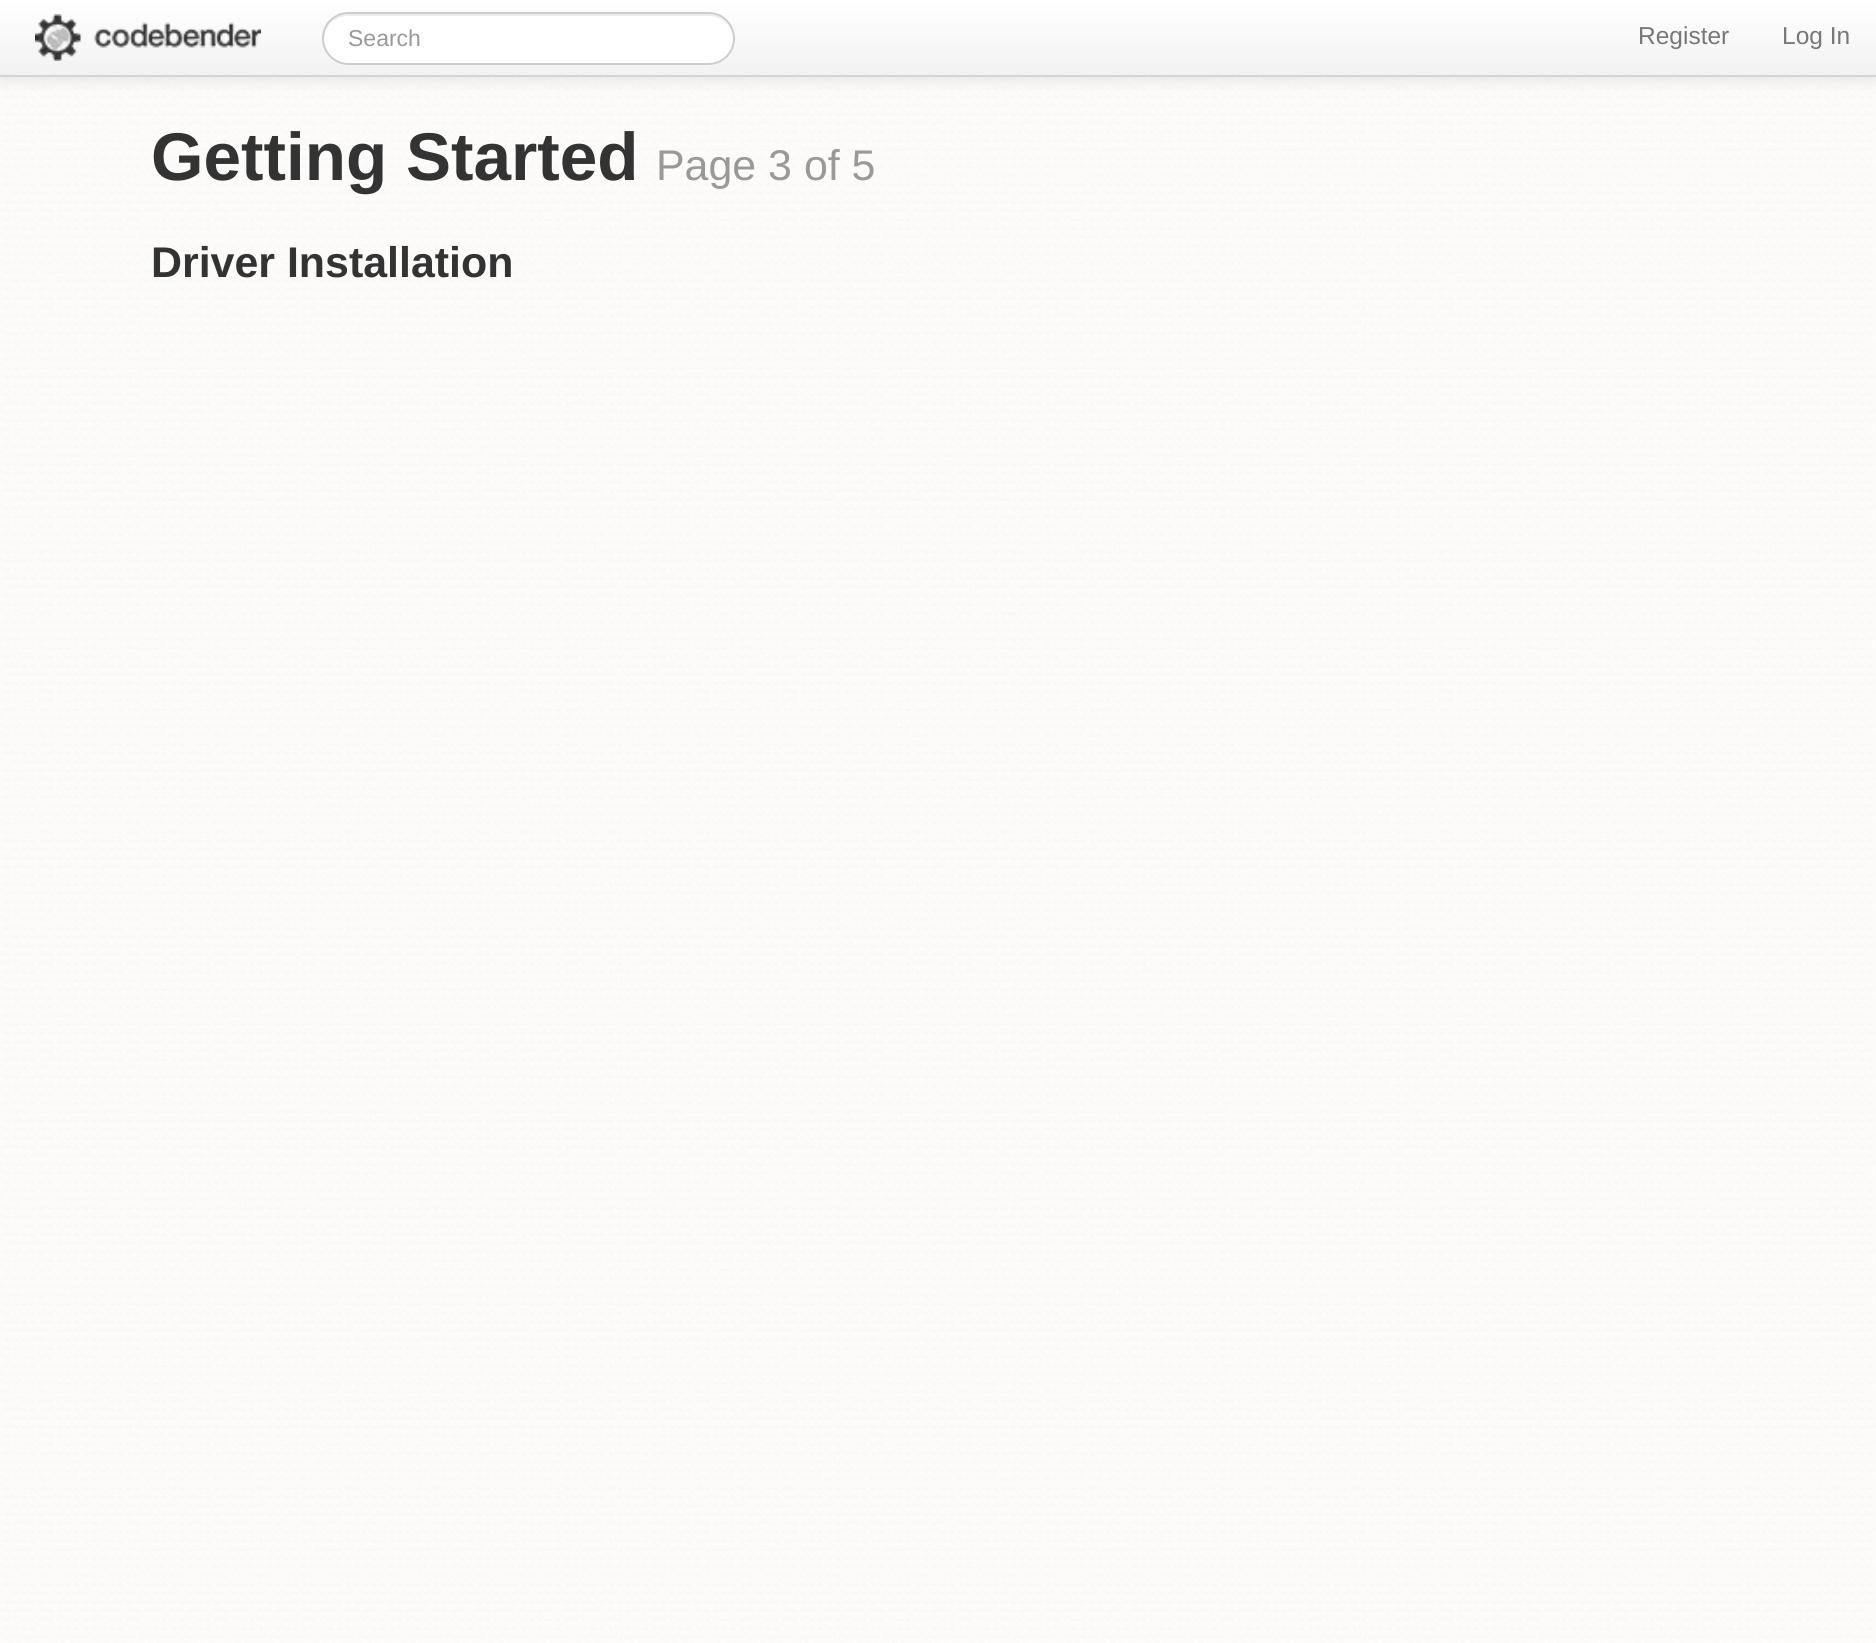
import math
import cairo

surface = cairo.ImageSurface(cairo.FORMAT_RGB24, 1876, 1643)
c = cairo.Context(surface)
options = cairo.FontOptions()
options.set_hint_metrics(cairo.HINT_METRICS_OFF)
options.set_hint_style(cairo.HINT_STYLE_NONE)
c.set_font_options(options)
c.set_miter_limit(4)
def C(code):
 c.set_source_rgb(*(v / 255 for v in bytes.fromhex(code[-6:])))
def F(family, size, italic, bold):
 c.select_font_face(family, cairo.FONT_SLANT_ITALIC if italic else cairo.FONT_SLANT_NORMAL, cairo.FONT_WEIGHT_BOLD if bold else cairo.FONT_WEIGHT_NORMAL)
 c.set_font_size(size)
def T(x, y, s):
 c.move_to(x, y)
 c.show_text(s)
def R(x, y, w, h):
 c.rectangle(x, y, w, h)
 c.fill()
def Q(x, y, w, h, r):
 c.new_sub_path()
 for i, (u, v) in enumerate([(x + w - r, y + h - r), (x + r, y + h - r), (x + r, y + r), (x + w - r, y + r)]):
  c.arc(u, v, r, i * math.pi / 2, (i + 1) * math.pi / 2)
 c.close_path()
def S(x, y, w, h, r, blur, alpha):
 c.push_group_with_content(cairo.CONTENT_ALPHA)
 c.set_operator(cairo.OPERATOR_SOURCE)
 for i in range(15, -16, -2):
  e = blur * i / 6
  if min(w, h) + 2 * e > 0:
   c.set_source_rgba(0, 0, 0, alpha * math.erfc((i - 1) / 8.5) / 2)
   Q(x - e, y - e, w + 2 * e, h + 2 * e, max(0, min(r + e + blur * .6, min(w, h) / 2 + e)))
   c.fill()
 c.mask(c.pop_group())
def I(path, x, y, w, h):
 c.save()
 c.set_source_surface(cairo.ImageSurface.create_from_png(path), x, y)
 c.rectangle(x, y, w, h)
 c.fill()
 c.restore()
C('ffffff')
c.paint()
I('1.png',0,77,1876,1566)
C('000000')
S(0,2,1876,77,0,9,.1)
gradient = cairo.LinearGradient(938,0,938,75)
gradient.add_color_stop_rgba(0,1,1,1,1)
gradient.add_color_stop_rgba(1,0.949,0.949,0.949,1)
c.set_source(gradient)
R(0,0,1876,75)
C('d4d4d4')
R(0,75,1876,2)
I('2.png',35,14,226,47)
C('ffffff')
Q(322,12,413,53,26.5)
c.fill()
C('ececec')
c.new_path()
c.move_to(348,16)
c.line_to(709,16)
c.curve_to(722,16,733,27,733,39)
c.curve_to(733,26,722,14,708,14)
c.line_to(348,14)
c.curve_to(335,14,324,26,324,39)
c.curve_to(324,27,335,16,348,16)
c.close_path()
c.fill()
Q(323,13,411,51,25.5)
C('cccccc')
c.stroke()
F('Liberation Sans',23,0,0)
C('999999')
T(348,46,'Search')
F('Liberation Sans',24.5,0,0)
C('777777')
T(1638,44,'Register')
T(1782,44,'Log In')
F('Liberation Sans',67.5,0,1)
C('333333')
T(151,180,'Getting Started')
F('Liberation Sans',42.9,0,0)
C('999999')
T(656,180,'Page 3 of 5')
F('Liberation Sans',42.9,0,1)
C('333333')
T(151,277,'Driver Installation')
surface.write_to_png('o.png')
